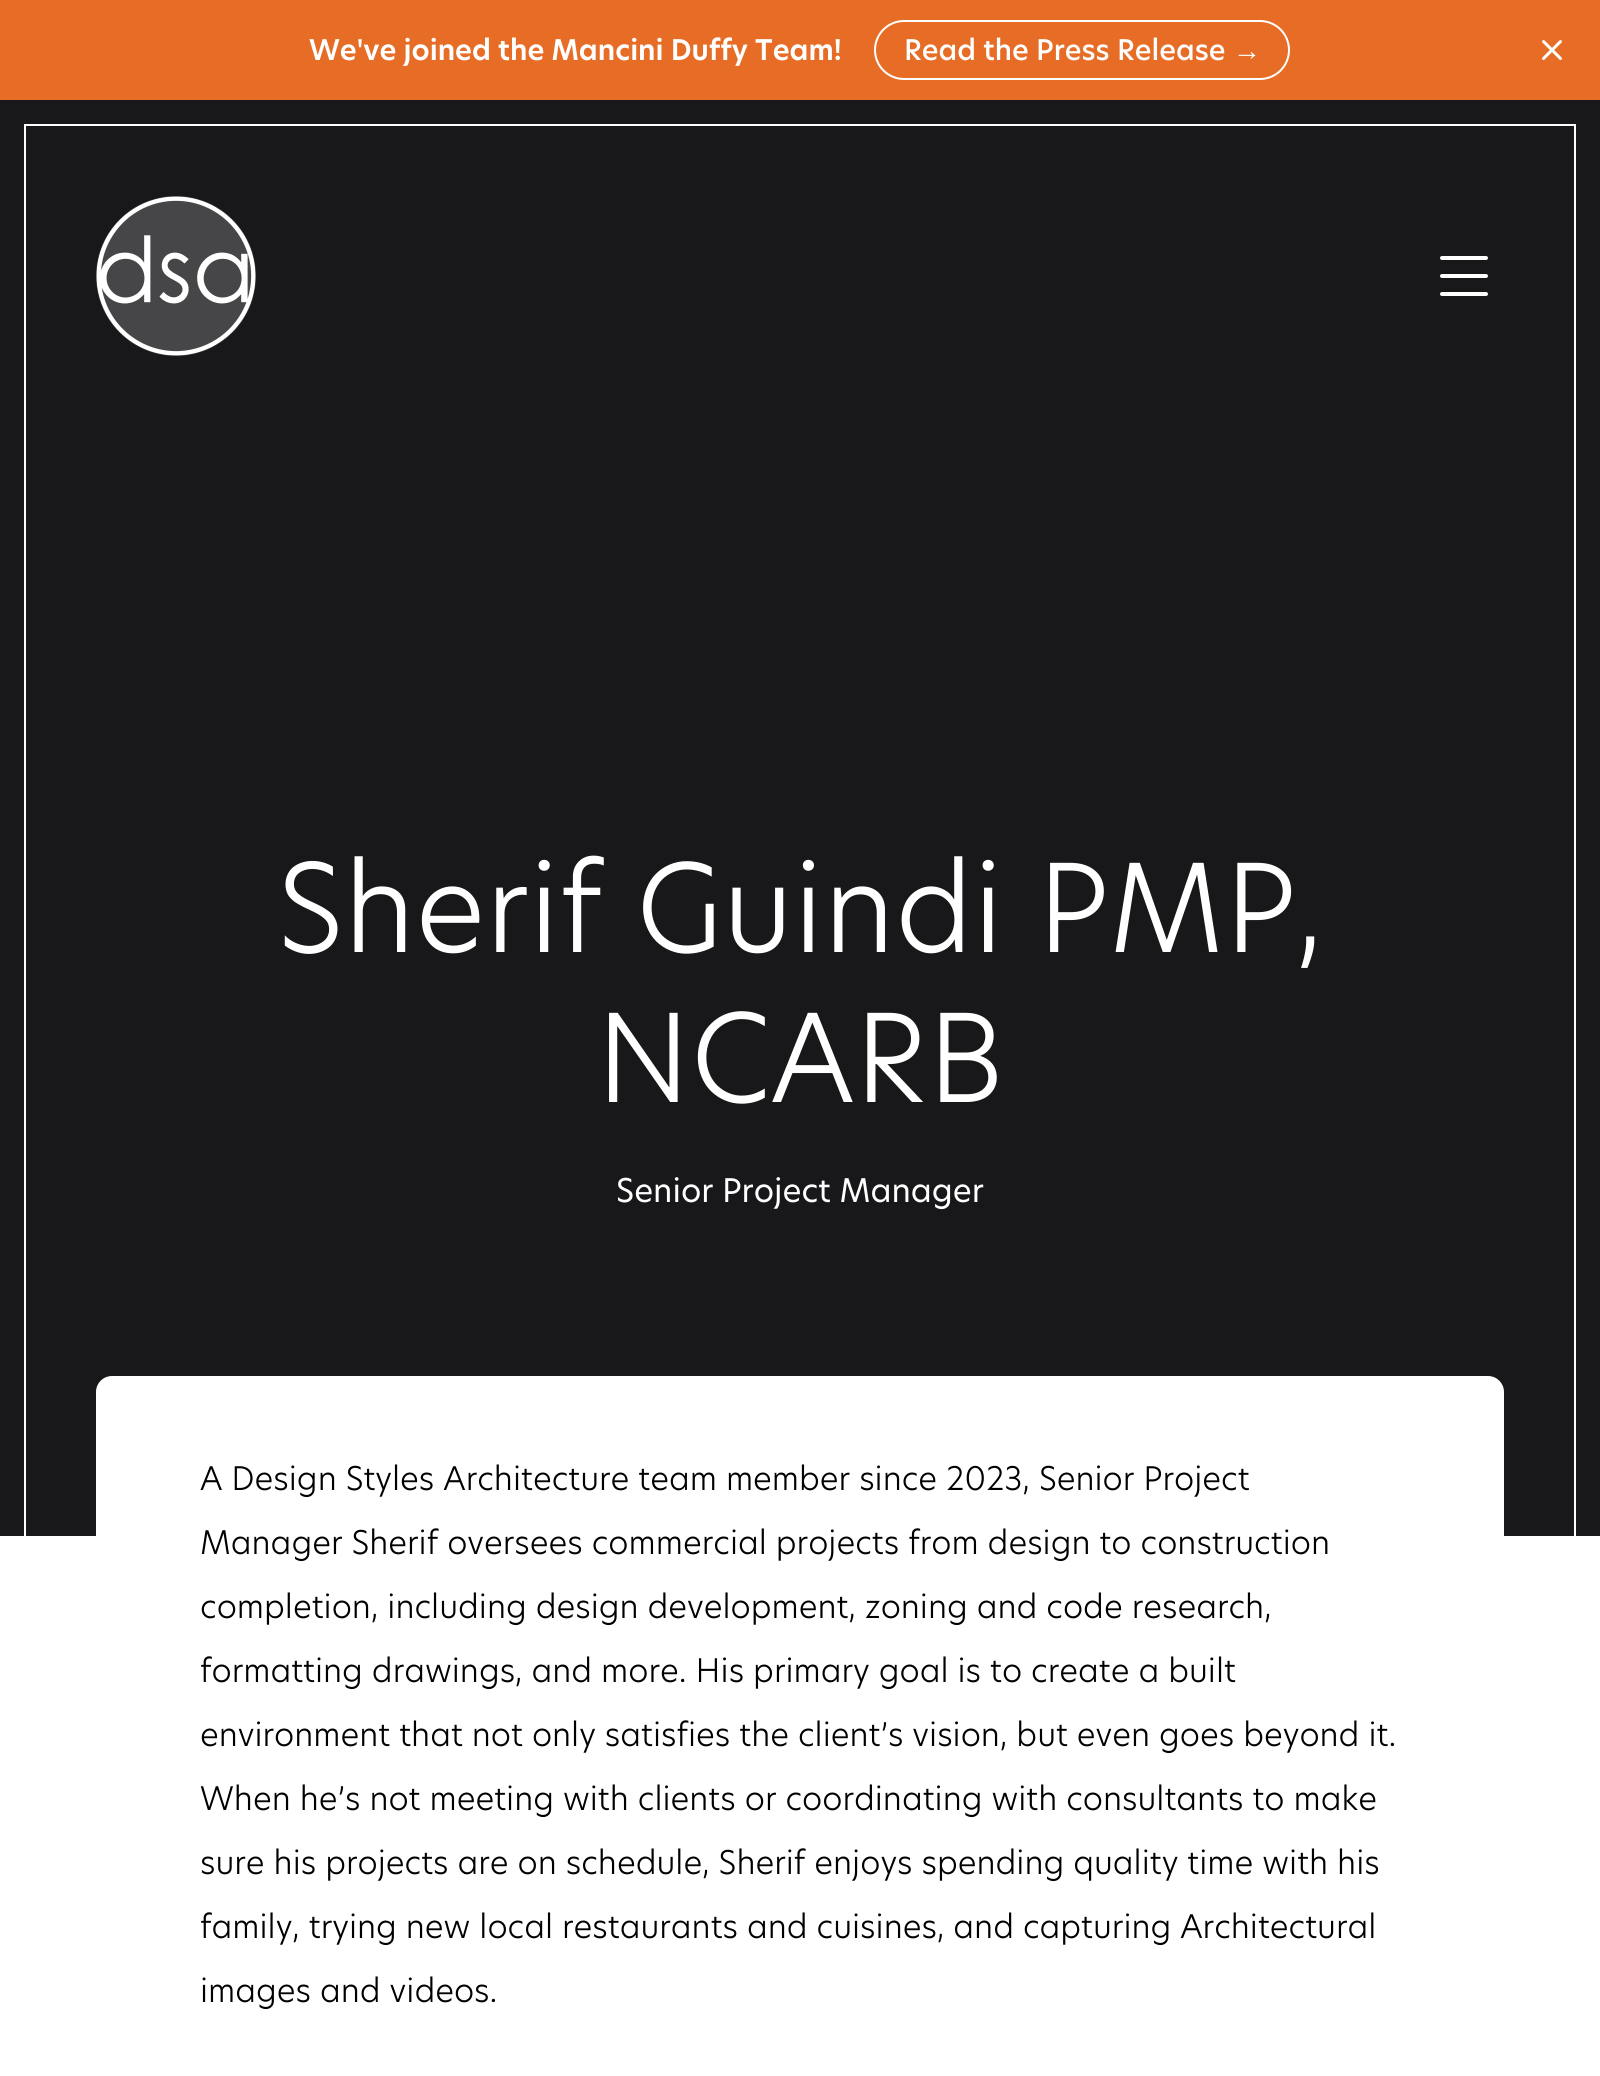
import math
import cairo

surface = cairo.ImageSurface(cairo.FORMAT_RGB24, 1600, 2076)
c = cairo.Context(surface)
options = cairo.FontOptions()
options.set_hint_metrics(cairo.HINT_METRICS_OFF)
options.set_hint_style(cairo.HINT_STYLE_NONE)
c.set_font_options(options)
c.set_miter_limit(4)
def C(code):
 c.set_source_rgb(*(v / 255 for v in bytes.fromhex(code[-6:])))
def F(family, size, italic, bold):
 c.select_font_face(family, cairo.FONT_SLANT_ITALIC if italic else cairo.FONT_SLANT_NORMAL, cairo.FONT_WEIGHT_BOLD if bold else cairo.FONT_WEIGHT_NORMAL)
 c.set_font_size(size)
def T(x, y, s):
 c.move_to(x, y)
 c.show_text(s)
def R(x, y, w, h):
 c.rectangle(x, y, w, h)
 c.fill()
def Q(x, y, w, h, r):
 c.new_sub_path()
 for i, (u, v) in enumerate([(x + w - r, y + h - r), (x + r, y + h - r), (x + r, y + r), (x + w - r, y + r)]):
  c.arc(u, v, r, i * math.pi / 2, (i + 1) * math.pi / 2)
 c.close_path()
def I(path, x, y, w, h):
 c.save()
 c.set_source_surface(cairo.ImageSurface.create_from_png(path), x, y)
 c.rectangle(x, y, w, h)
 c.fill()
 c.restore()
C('ffffff')
c.paint()
C('e76d26')
R(0,0,1600,100)
F('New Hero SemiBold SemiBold',28,0,0)
C('ffffff')
T(309,60,'We\'ve joined the Mancini Duffy Team!')
Q(875,21,414,58,29)
c.stroke()
F('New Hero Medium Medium',28,0,0)
T(904,60,'Read the Press Release')
F('Liberation Sans',28,0,0)
T(1233,60,'→')
I('1.png',1542,40,20,20)
C('18181b')
R(0,100,1600,1436)
c.save()
c.rectangle(0,100,1600,1436)
c.clip()
c.rectangle(25,125,1550,1434)
C('ffffff')
c.stroke()
c.restore()
C('464649')
c.arc(176,276,80,0,2 * math.pi)
c.fill()
I('2.png',96,196,160,160)
C('ffffff')
Q(1440,256,48,4,2)
c.fill()
Q(1440,274,48,4,2)
c.fill()
Q(1440,292,48,4,2)
c.fill()
F('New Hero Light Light',120,0,0)
T(277,952,'Sherif Guindi PMP,')
T(596,1102,'NCARB')
F('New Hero',32,0,0)
T(616,1202,'Senior Project Manager')
Q(96,1376,1408,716,16)
c.fill()
F('New Hero Light Light',32,0,0)
C('000000')
T(200,1490,'A Design Styles Architecture team member since 2023, Senior Project')
T(200,1554,'Manager Sherif oversees commercial projects from design to construction')
T(200,1618,'completion, including design development, zoning and code research,')
T(200,1682,'formatting drawings, and more. His primary goal is to create a built')
T(200,1746,'environment that not only satisfies the client’s vision, but even goes beyond it.')
T(200,1810,'When he’s not meeting with clients or coordinating with consultants to make')
T(200,1874,'sure his projects are on schedule, Sherif enjoys spending quality time with his')
T(200,1938,'family, trying new local restaurants and cuisines, and capturing Architectural')
T(200,2002,'images and videos.')
surface.write_to_png('o.png')
